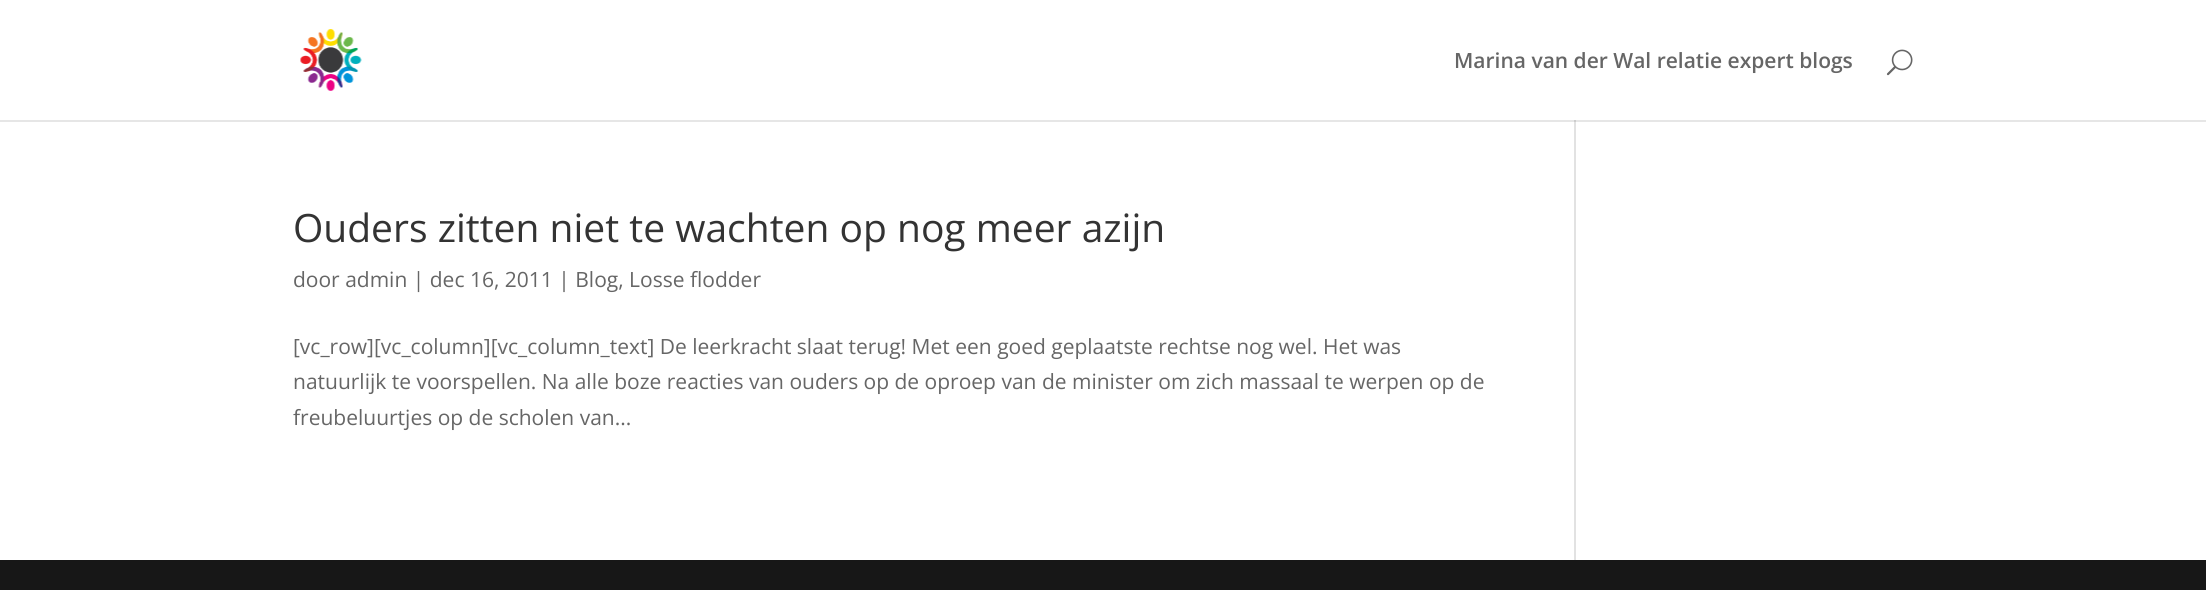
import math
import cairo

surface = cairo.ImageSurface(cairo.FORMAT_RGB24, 2206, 595)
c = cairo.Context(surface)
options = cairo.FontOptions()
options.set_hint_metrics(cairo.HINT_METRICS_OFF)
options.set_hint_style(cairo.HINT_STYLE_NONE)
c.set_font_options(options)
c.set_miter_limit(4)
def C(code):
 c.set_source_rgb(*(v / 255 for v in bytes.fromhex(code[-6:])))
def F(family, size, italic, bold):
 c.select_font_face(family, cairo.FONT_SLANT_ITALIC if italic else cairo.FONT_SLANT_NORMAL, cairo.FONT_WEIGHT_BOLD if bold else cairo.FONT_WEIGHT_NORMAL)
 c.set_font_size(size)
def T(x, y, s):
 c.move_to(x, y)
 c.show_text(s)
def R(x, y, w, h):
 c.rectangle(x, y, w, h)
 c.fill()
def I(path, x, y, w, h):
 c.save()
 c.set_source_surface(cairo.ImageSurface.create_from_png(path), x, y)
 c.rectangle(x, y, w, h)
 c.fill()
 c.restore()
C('ffffff')
c.paint()
C('e2e2e2')
R(1574,120,2,440)
c.set_source_rgba(0,0,0,0.1)
c.new_path()
c.move_to(0,120)
c.line_to(0,122)
c.line_to(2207,122)
c.line_to(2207,2)
c.line_to(2206,2)
c.line_to(2206,120)
c.close_path()
c.fill()
I('1.png',300,29,62,62)
F('Open Sans SemiBold',21,0,0)
C('666666')
T(1454,68,'Marina van der Wal relatie expert blogs')
I('2.png',1886,49,27,27)
F('Open Sans',39,0,0)
C('333333')
T(293,242,'Ouders zitten niet te wachten op nog meer azijn')
F('Open Sans',21,0,0)
C('666666')
T(293,287,'door admin | dec 16, 2011 | Blog, Losse flodder')
T(293,354,'[vc_row][vc_column][vc_column_text] De leerkracht slaat terug! Met een goed geplaatste rechtse nog wel. Het was')
T(293,389,'natuurlijk te voorspellen. Na alle boze reacties van ouders op de oproep van de minister om zich massaal te werpen op de')
T(293,425,'freubeluurtjes op de scholen van...')
C('171717')
R(0,560,2206,30)
surface.write_to_png('o.png')
